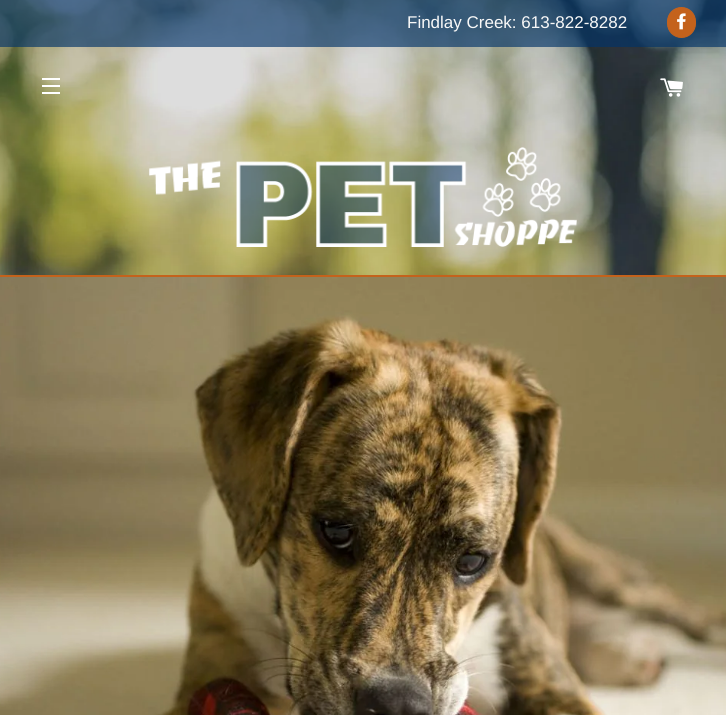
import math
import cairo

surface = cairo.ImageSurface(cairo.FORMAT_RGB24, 726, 715)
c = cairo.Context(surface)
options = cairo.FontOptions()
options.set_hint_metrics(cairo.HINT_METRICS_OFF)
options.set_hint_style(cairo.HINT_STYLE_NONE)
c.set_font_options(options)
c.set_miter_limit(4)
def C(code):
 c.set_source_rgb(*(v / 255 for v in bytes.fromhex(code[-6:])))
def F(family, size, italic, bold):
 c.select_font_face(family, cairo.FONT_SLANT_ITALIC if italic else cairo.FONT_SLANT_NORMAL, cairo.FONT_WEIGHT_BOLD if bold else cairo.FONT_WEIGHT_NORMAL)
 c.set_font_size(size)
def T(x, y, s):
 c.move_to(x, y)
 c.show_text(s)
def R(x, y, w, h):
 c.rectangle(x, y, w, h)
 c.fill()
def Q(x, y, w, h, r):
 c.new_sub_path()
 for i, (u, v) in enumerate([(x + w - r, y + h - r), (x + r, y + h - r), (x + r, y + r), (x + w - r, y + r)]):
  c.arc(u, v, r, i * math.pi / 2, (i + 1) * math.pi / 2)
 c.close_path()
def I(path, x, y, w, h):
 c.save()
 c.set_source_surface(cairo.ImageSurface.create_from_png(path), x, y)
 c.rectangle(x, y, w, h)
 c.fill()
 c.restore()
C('ffffff')
c.paint()
I('1.png',0,0,726,275)
C('c4621c')
R(0,275,726,2)
c.set_source_rgba(0.012,0.204,0.412,0.65)
R(0,0,726,47)
C('c4621c')
Q(667.5,7.5,28,30,14)
c.fill_preserve()
c.set_line_width(1)
c.stroke()
F('Liberation Sans',17,0,0)
C('f8f8f8')
T(407,28,'Findlay Creek: 613-822-8282')
I('2.png',677,13,9,17)
C('ffffff')
R(42,78,18,2)
R(42,85,18,2)
R(42,92,18,2)
I('3.png',660,78,23,19)
I('4.png',149,147,428,100)
I('5.png',0,277,726,438)
surface.write_to_png('o.png')
